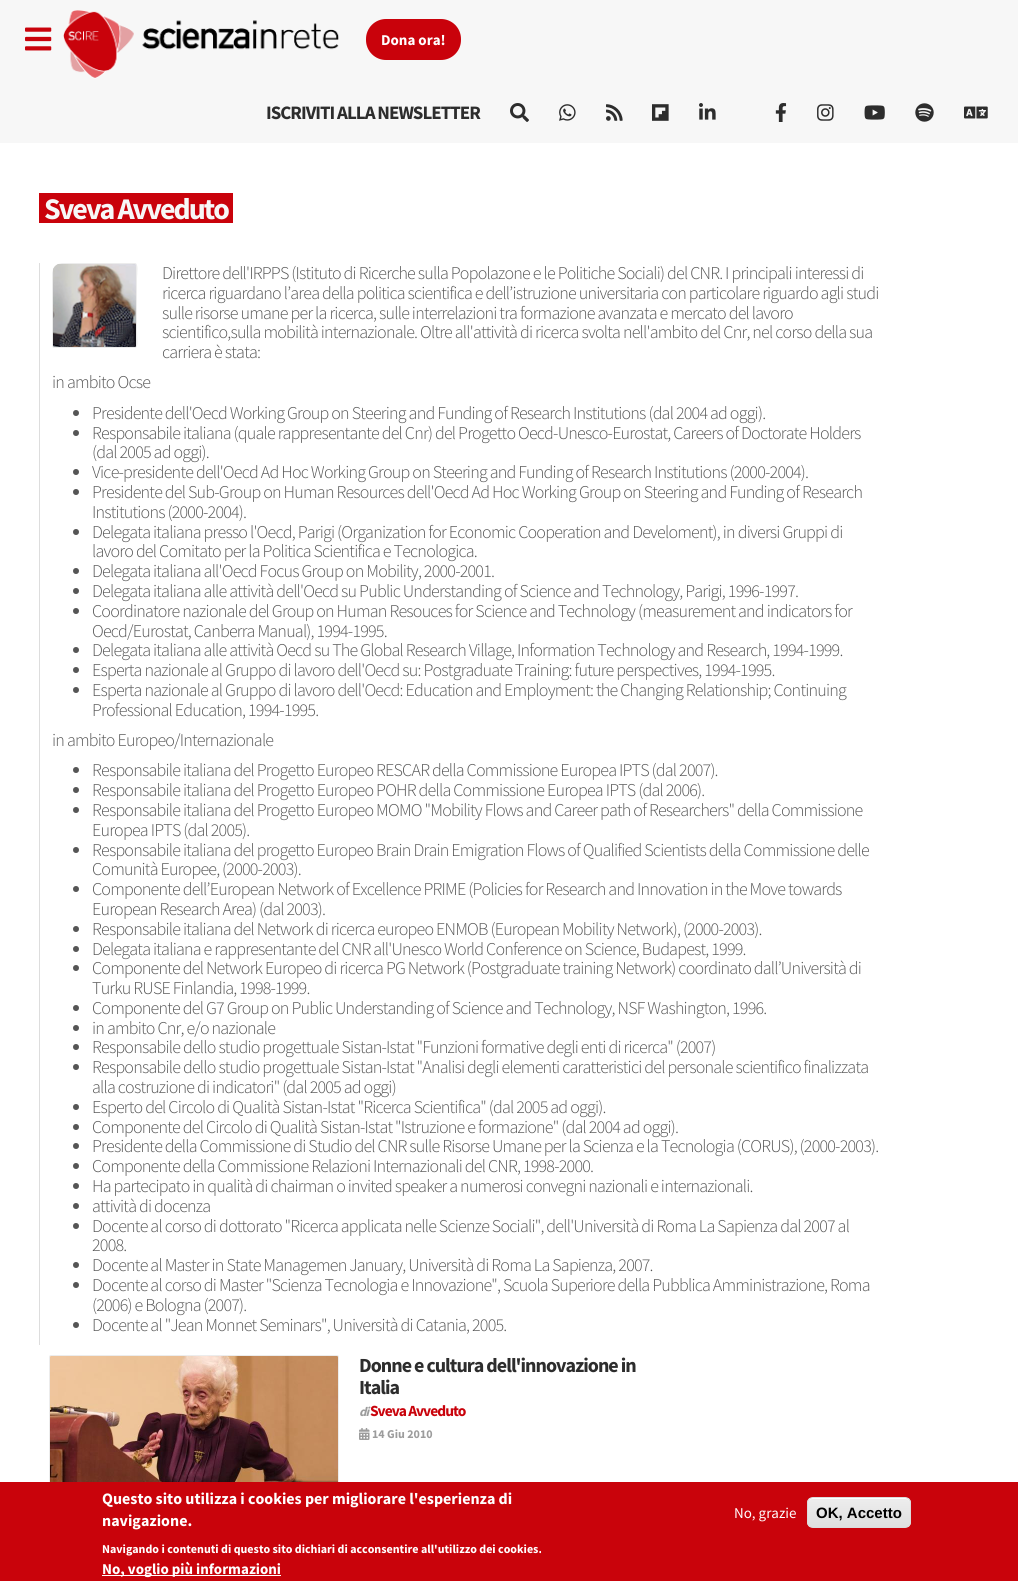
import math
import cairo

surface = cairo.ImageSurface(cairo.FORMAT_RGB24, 1018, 1581)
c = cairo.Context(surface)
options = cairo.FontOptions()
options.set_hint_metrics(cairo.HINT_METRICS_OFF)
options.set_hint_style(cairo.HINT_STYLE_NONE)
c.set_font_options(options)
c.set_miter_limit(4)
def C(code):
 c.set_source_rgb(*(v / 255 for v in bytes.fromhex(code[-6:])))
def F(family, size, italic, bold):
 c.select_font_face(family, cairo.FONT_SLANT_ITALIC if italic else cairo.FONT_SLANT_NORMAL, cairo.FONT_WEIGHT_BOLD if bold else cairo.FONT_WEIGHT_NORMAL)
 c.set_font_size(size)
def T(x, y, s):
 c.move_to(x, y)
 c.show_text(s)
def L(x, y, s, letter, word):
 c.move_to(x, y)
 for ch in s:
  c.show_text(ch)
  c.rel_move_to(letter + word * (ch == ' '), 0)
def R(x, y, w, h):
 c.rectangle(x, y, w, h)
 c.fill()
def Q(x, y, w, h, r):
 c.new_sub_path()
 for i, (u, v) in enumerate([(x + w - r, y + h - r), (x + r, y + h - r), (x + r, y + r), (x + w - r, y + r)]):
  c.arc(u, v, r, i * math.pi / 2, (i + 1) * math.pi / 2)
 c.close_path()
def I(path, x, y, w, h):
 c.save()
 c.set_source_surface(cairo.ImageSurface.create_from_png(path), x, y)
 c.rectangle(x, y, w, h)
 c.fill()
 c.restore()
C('ffffff')
c.paint()
C('f7f7f7')
R(0,0,1018,143)
I('1.png',25,27,27,24)
I('2.png',63,10,276,69)
C('c9020b')
Q(366,19,95,41,20)
c.fill()
F('Source Sans Pro',15,0,1)
C('ffffff')
T(381,45,'Dona ora!')
F('Source Sans Pro',19,0,1)
C('2d2d2d')
L(266,119,'ISCRIVITI ALLA NEWSLETTER',-1,0)
I('3.png',510,103,19,19)
I('4.png',559,104,17,17)
I('5.png',606,104,17,17)
I('6.png',652,104,17,17)
I('7.png',699,103,17,17)
I('8.png',775,103,12,19)
I('9.png',817,104,17,17)
I('10.png',864,105,21,15)
I('11.png',915,103,19,19)
I('12.png',964,106,24,13)
C('c9020b')
R(39,193,194,30)
F('Source Sans Pro',30,0,1)
C('f7f7f7')
L(44,219,'Sveva Avveduto',-2,0)
C('dddddd')
R(39,263,1,1082)
C('ececec')
c.new_path()
c.move_to(62,263)
c.line_to(58,264)
c.line_to(135,264)
c.curve_to(136,264,136,264,136,265)
c.line_to(136,346)
c.curve_to(136,347,136,347,135,347)
c.line_to(54,347)
c.curve_to(53,347,53,347,53,346)
c.line_to(53,269)
c.line_to(52,273)
c.line_to(52,343)
c.curve_to(52,345,52,346,53,348)
c.line_to(135,348)
c.curve_to(139,348,137,336,137,332)
c.line_to(137,278)
c.curve_to(137,275,139,263,135,263)
c.close_path()
c.fill()
I('13.png',53,264,83,83)
F('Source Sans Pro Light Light',18,0,0)
C('555555')
L(162,279,'Direttore dell\'IRPPS (Istituto di Ricerche sulla Popolazone e le Politiche Sociali) del CNR. I principali interessi di',-.8,0)
L(162,299,'ricerca riguardano l’area della politica scientifica e dell’istruzione universitaria con particolare riguardo agli studi',-.8,0)
L(162,319,'sulle risorse umane per la ricerca, sulle interrelazioni tra formazione avanzata e mercato del lavoro',-.8,0)
L(162,338,'scientifico,sulla mobilità internazionale. Oltre all\'attività di ricerca svolta nell\'ambito del Cnr, nel corso della sua',-.8,0)
L(162,358,'carriera è stata:',-.8,0)
L(52,388,'in ambito Ocse',-.8,0)
c.new_path()
c.arc(76,413,3,0,2 * math.pi)
c.fill()
L(92,419,'Presidente dell\'Oecd Working Group on Steering and Funding of Research Institutions (dal 2004 ad oggi).',-.8,0)
c.new_path()
c.arc(76,433,3,0,2 * math.pi)
c.fill()
L(92,439,'Responsabile italiana (quale rappresentante del Cnr) del Progetto Oecd-Unesco-Eurostat, Careers of Doctorate Holders',-.8,0)
L(92,458,'(dal 2005 ad oggi).',-.8,0)
c.new_path()
c.arc(76,472,3,0,2 * math.pi)
c.fill()
L(92,478,'Vice-presidente dell\'Oecd Ad Hoc Working Group on Steering and Funding of Research Institutions (2000-2004).',-.8,0)
c.new_path()
c.arc(76,492,3,0,2 * math.pi)
c.fill()
L(92,498,'Presidente del Sub-Group on Human Resources dell\'Oecd Ad Hoc Working Group on Steering and Funding of Research',-.8,0)
L(92,518,'Institutions (2000-2004).',-.8,0)
c.new_path()
c.arc(76,532,3,0,2 * math.pi)
c.fill()
L(92,538,'Delegata italiana presso l\'Oecd, Parigi (Organization for Economic Cooperation and Develoment), in diversi Gruppi di',-.8,0)
L(92,557,'lavoro del Comitato per la Politica Scientifica e Tecnologica.',-.8,0)
c.new_path()
c.arc(76,571,3,0,2 * math.pi)
c.fill()
L(92,577,'Delegata italiana all\'Oecd Focus Group on Mobility, 2000-2001.',-.8,0)
c.new_path()
c.arc(76,591,3,0,2 * math.pi)
c.fill()
L(92,597,'Delegata italiana alle attività dell\'Oecd su Public Understanding of Science and Technology, Parigi, 1996-1997.',-.8,0)
c.new_path()
c.arc(76,611,3,0,2 * math.pi)
c.fill()
L(92,617,'Coordinatore nazionale del Group on Human Resouces for Science and Technology (measurement and indicators for',-.8,0)
L(92,637,'Oecd/Eurostat, Canberra Manual), 1994-1995.',-.8,0)
c.new_path()
c.arc(76,650,3,0,2 * math.pi)
c.fill()
L(92,656,'Delegata italiana alle attività Oecd su The Global Research Village, Information Technology and Research, 1994-1999.',-.8,0)
c.new_path()
c.arc(76,670,3,0,2 * math.pi)
c.fill()
L(92,676,'Esperta nazionale al Gruppo di lavoro dell\'Oecd su: Postgraduate Training: future perspectives, 1994-1995.',-.8,0)
c.new_path()
c.arc(76,690,3,0,2 * math.pi)
c.fill()
L(92,696,'Esperta nazionale al Gruppo di lavoro dell\'Oecd: Education and Employment: the Changing Relationship; Continuing',-.8,0)
L(92,716,'Professional Education, 1994-1995.',-.8,0)
L(52,746,'in ambito Europeo/Internazionale',-.8,0)
c.new_path()
c.arc(76,770,3,0,2 * math.pi)
c.fill()
L(92,776,'Responsabile italiana del Progetto Europeo RESCAR della Commissione Europea IPTS (dal 2007).',-.8,0)
c.new_path()
c.arc(76,790,3,0,2 * math.pi)
c.fill()
L(92,796,'Responsabile italiana del Progetto Europeo POHR della Commissione Europea IPTS (dal 2006).',-.8,0)
c.new_path()
c.arc(76,810,3,0,2 * math.pi)
c.fill()
L(92,816,'Responsabile italiana del Progetto Europeo MOMO "Mobility Flows and Career path of Researchers" della Commissione',-.8,0)
L(92,836,'Europea IPTS (dal 2005).',-.8,0)
c.new_path()
c.arc(76,850,3,0,2 * math.pi)
c.fill()
L(92,856,'Responsabile italiana del progetto Europeo Brain Drain Emigration Flows of Qualified Scientists della Commissione delle',-.8,0)
L(92,875,'Comunità Europee, (2000-2003).',-.8,0)
c.new_path()
c.arc(76,889,3,0,2 * math.pi)
c.fill()
L(92,895,'Componente dell’European Network of Excellence PRIME (Policies for Research and Innovation in the Move towards',-.8,0)
L(92,915,'European Research Area) (dal 2003).',-.8,0)
c.new_path()
c.arc(76,929,3,0,2 * math.pi)
c.fill()
L(92,935,'Responsabile italiana del Network di ricerca europeo ENMOB (European Mobility Network), (2000-2003).',-.8,0)
c.new_path()
c.arc(76,949,3,0,2 * math.pi)
c.fill()
L(92,955,'Delegata italiana e rappresentante del CNR all\'Unesco World Conference on Science, Budapest, 1999.',-.8,0)
c.new_path()
c.arc(76,968,3,0,2 * math.pi)
c.fill()
L(92,974,'Componente del Network Europeo di ricerca PG Network (Postgraduate training Network) coordinato dall’Università di',-.8,0)
L(92,994,'Turku RUSE Finlandia, 1998-1999.',-.8,0)
c.new_path()
c.arc(76,1008,3,0,2 * math.pi)
c.fill()
L(92,1014,'Componente del G7 Group on Public Understanding of Science and Technology, NSF Washington, 1996.',-.8,0)
c.new_path()
c.arc(76,1028,3,0,2 * math.pi)
c.fill()
L(92,1034,'in ambito Cnr, e/o nazionale',-.8,0)
c.new_path()
c.arc(76,1047,3,0,2 * math.pi)
c.fill()
L(92,1053,'Responsabile dello studio progettuale Sistan-Istat "Funzioni formative degli enti di ricerca" (2007)',-.8,0)
c.new_path()
c.arc(76,1067,3,0,2 * math.pi)
c.fill()
L(92,1073,'Responsabile dello studio progettuale Sistan-Istat "Analisi degli elementi caratteristici del personale scientifico finalizzata',-.8,0)
L(92,1093,'alla costruzione di indicatori" (dal 2005 ad oggi)',-.8,0)
c.new_path()
c.arc(76,1107,3,0,2 * math.pi)
c.fill()
L(92,1113,'Esperto del Circolo di Qualità Sistan-Istat "Ricerca Scientifica" (dal 2005 ad oggi).',-.8,0)
c.new_path()
c.arc(76,1127,3,0,2 * math.pi)
c.fill()
L(92,1133,'Componente del Circolo di Qualità Sistan-Istat "Istruzione e formazione" (dal 2004 ad oggi).',-.8,0)
c.new_path()
c.arc(76,1146,3,0,2 * math.pi)
c.fill()
L(92,1152,'Presidente della Commissione di Studio del CNR sulle Risorse Umane per la Scienza e la Tecnologia (CORUS), (2000-2003).',-.8,0)
c.new_path()
c.arc(76,1166,3,0,2 * math.pi)
c.fill()
L(92,1172,'Componente della Commissione Relazioni Internazionali del CNR, 1998-2000.',-.8,0)
c.new_path()
c.arc(76,1186,3,0,2 * math.pi)
c.fill()
L(92,1192,'Ha partecipato in qualità di chairman o invited speaker a numerosi convegni nazionali e internazionali.',-.8,0)
c.new_path()
c.arc(76,1206,3,0,2 * math.pi)
c.fill()
L(92,1212,'attività di docenza',-.8,0)
c.new_path()
c.arc(76,1226,3,0,2 * math.pi)
c.fill()
L(92,1232,'Docente al corso di dottorato "Ricerca applicata nelle Scienze Sociali", dell\'Università di Roma La Sapienza dal 2007 al',-.8,0)
L(92,1251,'2008.',-.8,0)
c.new_path()
c.arc(76,1265,3,0,2 * math.pi)
c.fill()
L(92,1271,'Docente al Master in State Managemen January, Università di Roma La Sapienza, 2007.',-.8,0)
c.new_path()
c.arc(76,1285,3,0,2 * math.pi)
c.fill()
L(92,1291,'Docente al corso di Master "Scienza Tecnologia e Innovazione", Scuola Superiore della Pubblica Amministrazione, Roma',-.8,0)
L(92,1311,'(2006) e Bologna (2007).',-.8,0)
c.new_path()
c.arc(76,1325,3,0,2 * math.pi)
c.fill()
L(92,1331,'Docente al "Jean Monnet Seminars", Università di Catania, 2005.',-.8,0)
Q(49.5,1355.5,289,166,1.5)
C('ececec')
c.set_line_width(1)
c.stroke()
I('14.png',50,1356,288,126)
F('Source Sans Pro',20,0,1)
C('2d2d2d')
L(359,1372,'Donne e cultura dell\'innovazione in',-1,0)
L(359,1394,'Italia',-1,0)
F('Source Sans Pro',13,1,1)
C('9c9c9c')
L(359,1416,'di',-1,0)
F('Source Sans Pro',15.5,0,1)
C('c9020b')
L(370,1416,'Sveva Avveduto',-1,0)
I('15.png',359,1428,11,12)
F('Source Sans Pro',12,0,1)
C('9c9c9c')
T(372,1438,'14 Giu 2010')
C('c9030b')
R(0,1482,1018,99)
F('Source Sans Pro',16,0,1)
C('ffffff')
T(102,1504,'Questo sito utilizza i cookies per migliorare l\'esperienza di')
T(102,1526,'navigazione.')
F('Source Sans Pro',12,0,1)
T(102,1553,'Navigando i contenuti di questo sito dichiari di acconsentire all\'utilizzo dei cookies.')
R(102,1575,179,1)
F('Source Sans Pro',15,0,1)
T(102,1574,'No, voglio più informazioni')
F('Source Sans Pro',15,0,0)
T(734,1518,'No, grazie')
c.save()
Q(807,1497,104,31,6)
c.clip()
gradient = cairo.LinearGradient(859,1498,859,1527)
gradient.add_color_stop_rgba(.05,0.929,0.929,0.929,1)
gradient.add_color_stop_rgba(1,0.875,0.875,0.875,1)
c.set_source(gradient)
R(807,1498,104,29)
c.restore()
c.new_path()
c.move_to(813,1499)
c.line_to(905,1499)
c.curve_to(908,1499,910,1501,910,1504)
c.curve_to(910,1494,895,1498,890,1498)
c.line_to(828,1498)
c.curve_to(823,1498,808,1494,808,1504)
c.curve_to(808,1501,810,1499,813,1499)
c.close_path()
c.fill()
Q(807.5,1497.5,103,30,5.5)
C('dcdcdc')
c.stroke()
F('Liberation Sans',15,0,1)
C('000000')
T(816,1518,'OK, Accetto')
surface.write_to_png('o.png')
